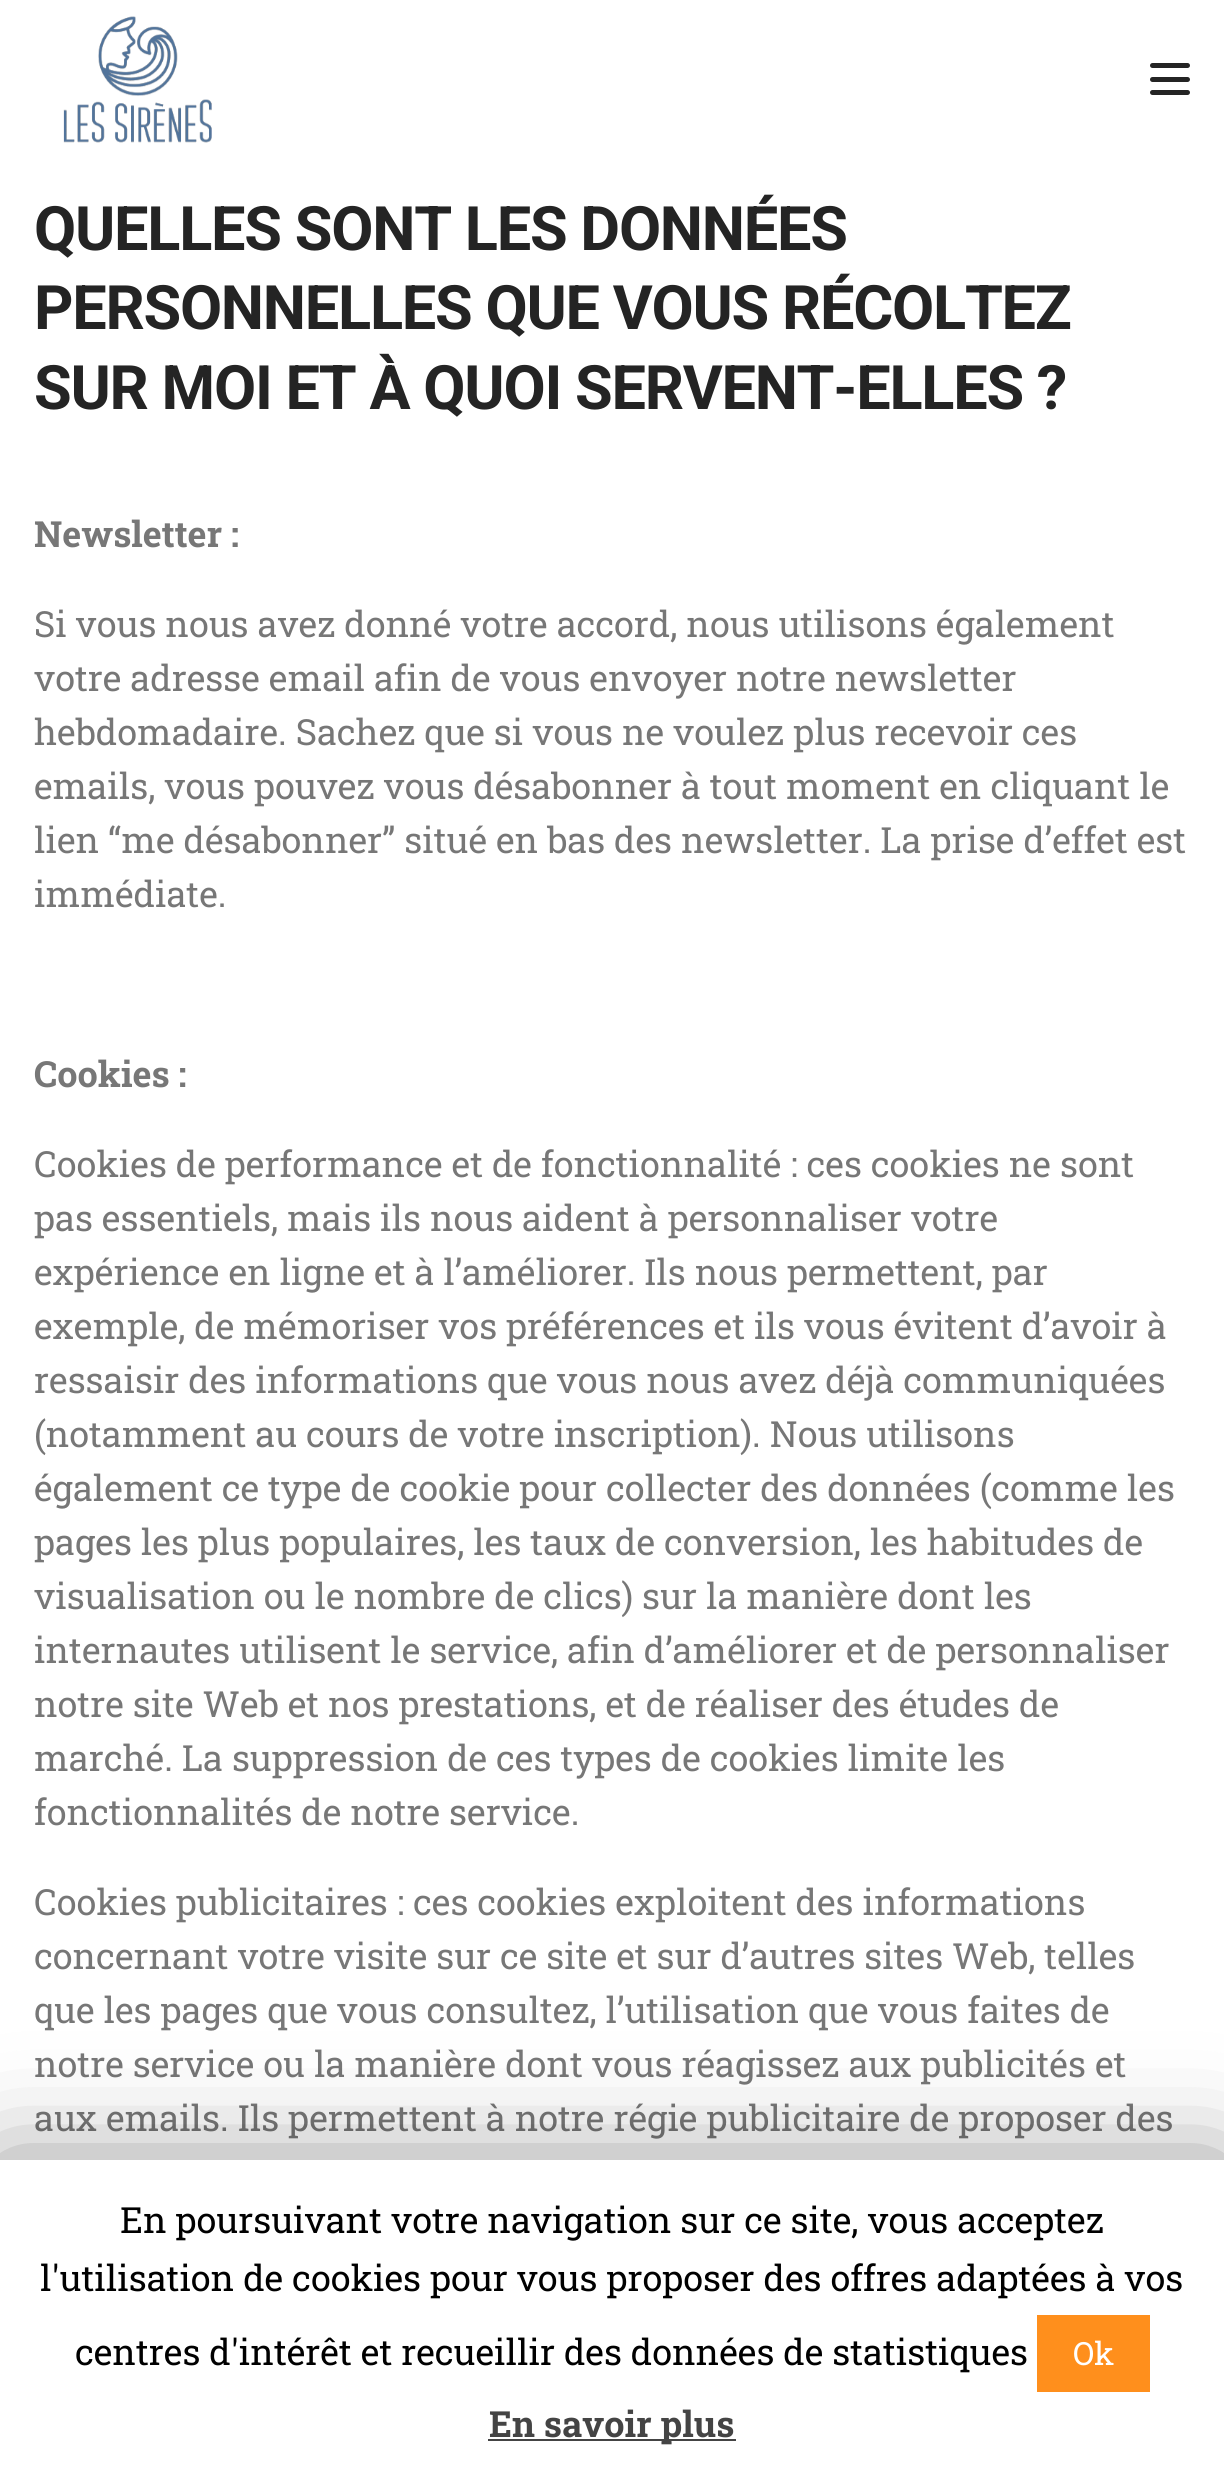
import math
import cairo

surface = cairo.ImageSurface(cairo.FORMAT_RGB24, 1224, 2478)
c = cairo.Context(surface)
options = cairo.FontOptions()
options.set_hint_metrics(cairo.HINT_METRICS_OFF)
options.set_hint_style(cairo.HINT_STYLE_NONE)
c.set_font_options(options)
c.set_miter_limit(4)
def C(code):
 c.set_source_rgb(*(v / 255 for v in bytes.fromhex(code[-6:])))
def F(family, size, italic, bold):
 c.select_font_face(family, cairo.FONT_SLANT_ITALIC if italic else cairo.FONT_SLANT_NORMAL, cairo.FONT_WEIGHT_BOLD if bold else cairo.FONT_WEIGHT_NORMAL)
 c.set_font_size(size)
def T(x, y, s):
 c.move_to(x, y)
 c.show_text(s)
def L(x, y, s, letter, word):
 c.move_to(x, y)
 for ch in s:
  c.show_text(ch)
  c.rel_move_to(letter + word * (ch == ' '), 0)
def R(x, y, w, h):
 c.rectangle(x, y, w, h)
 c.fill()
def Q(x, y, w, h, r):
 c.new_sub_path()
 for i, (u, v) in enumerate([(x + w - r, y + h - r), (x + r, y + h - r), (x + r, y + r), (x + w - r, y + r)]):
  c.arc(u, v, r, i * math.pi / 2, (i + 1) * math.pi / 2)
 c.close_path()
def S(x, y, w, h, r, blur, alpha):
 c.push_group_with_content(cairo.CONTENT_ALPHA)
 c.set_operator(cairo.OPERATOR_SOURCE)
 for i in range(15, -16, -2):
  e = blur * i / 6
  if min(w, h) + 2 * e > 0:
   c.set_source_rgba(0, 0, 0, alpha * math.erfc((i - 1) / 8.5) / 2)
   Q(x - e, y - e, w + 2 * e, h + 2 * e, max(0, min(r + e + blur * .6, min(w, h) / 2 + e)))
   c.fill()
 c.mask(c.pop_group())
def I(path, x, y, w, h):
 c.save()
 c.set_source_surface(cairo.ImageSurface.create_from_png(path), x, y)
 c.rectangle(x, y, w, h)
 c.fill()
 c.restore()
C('ffffff')
c.paint()
I('1.png',63,16,149,127)
C('242424')
Q(1150,63,40,5,2.5)
c.fill()
Q(1150,77,40,5,2.5)
c.fill()
Q(1150,90,40,5,2.5)
c.fill()
F('Roboto',61.25,0,1)
L(34,250,'QUELLES SONT LES DONNÉES',-1.25,0)
L(34,329,'PERSONNELLES QUE VOUS RÉCOLTEZ',-1.25,0)
L(34,409,'SUR MOI ET À QUOI SERVENT-ELLES ?',-1.25,0)
F('Roboto Slab',36,0,1)
C('777777')
T(34,547,'Newsletter :')
F('Roboto Slab',36,0,0)
T(34,637,'Si vous nous avez donné votre accord, nous utilisons également')
T(34,691,'votre adresse email afin de vous envoyer notre newsletter')
T(34,745,'hebdomadaire. Sachez que si vous ne voulez plus recevoir ces')
T(34,799,'emails, vous pouvez vous désabonner à tout moment en cliquant le')
T(34,853,'lien “me désabonner” situé en bas des newsletter. La prise d’effet est')
T(34,907,'immédiate.')
F('Roboto Slab',36,0,1)
T(34,1087,'Cookies :')
F('Roboto Slab',36,0,0)
T(34,1177,'Cookies de performance et de fonctionnalité : ces cookies ne sont')
T(34,1231,'pas essentiels, mais ils nous aident à personnaliser votre')
T(34,1285,'expérience en ligne et à l’améliorer. Ils nous permettent, par')
T(34,1339,'exemple, de mémoriser vos préférences et ils vous évitent d’avoir à')
T(34,1393,'ressaisir des informations que vous nous avez déjà communiquées')
T(34,1447,'(notamment au cours de votre inscription). Nous utilisons')
T(34,1501,'également ce type de cookie pour collecter des données (comme les')
T(34,1555,'pages les plus populaires, les taux de conversion, les habitudes de')
T(34,1609,'visualisation ou le nombre de clics) sur la manière dont les')
T(34,1663,'internautes utilisent le service, afin d’améliorer et de personnaliser')
T(34,1717,'notre site Web et nos prestations, et de réaliser des études de')
T(34,1771,'marché. La suppression de ces types de cookies limite les')
T(34,1825,'fonctionnalités de notre service.')
T(34,1915,'Cookies publicitaires : ces cookies exploitent des informations')
T(34,1969,'concernant votre visite sur ce site et sur d’autres sites Web, telles')
T(34,2023,'que les pages que vous consultez, l’utilisation que vous faites de')
T(34,2077,'notre service ou la manière dont vous réagissez aux publicités et')
T(34,2131,'aux emails. Ils permettent à notre régie publicitaire de proposer des')
C('000000')
S(0,2171,1224,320,0,56,.5)
C('ffffff')
R(0,2160,1224,318)
C('000000')
T(120,2233,'En poursuivant votre navigation sur ce site, vous acceptez')
T(40,2291,'l\'utilisation de cookies pour vous proposer des offres adaptées à vos')
T(75,2365,'centres d\'intérêt et recueillir des données de statistiques')
C('ff8f1c')
R(1037,2315,113,77)
F('Roboto Slab',32,0,0)
C('ffffff')
T(1073,2365,'Ok')
C('444444')
R(488,2439,248,2)
F('Roboto Slab',36,0,1)
T(489,2437,'En savoir plus')
surface.write_to_png('o.png')
